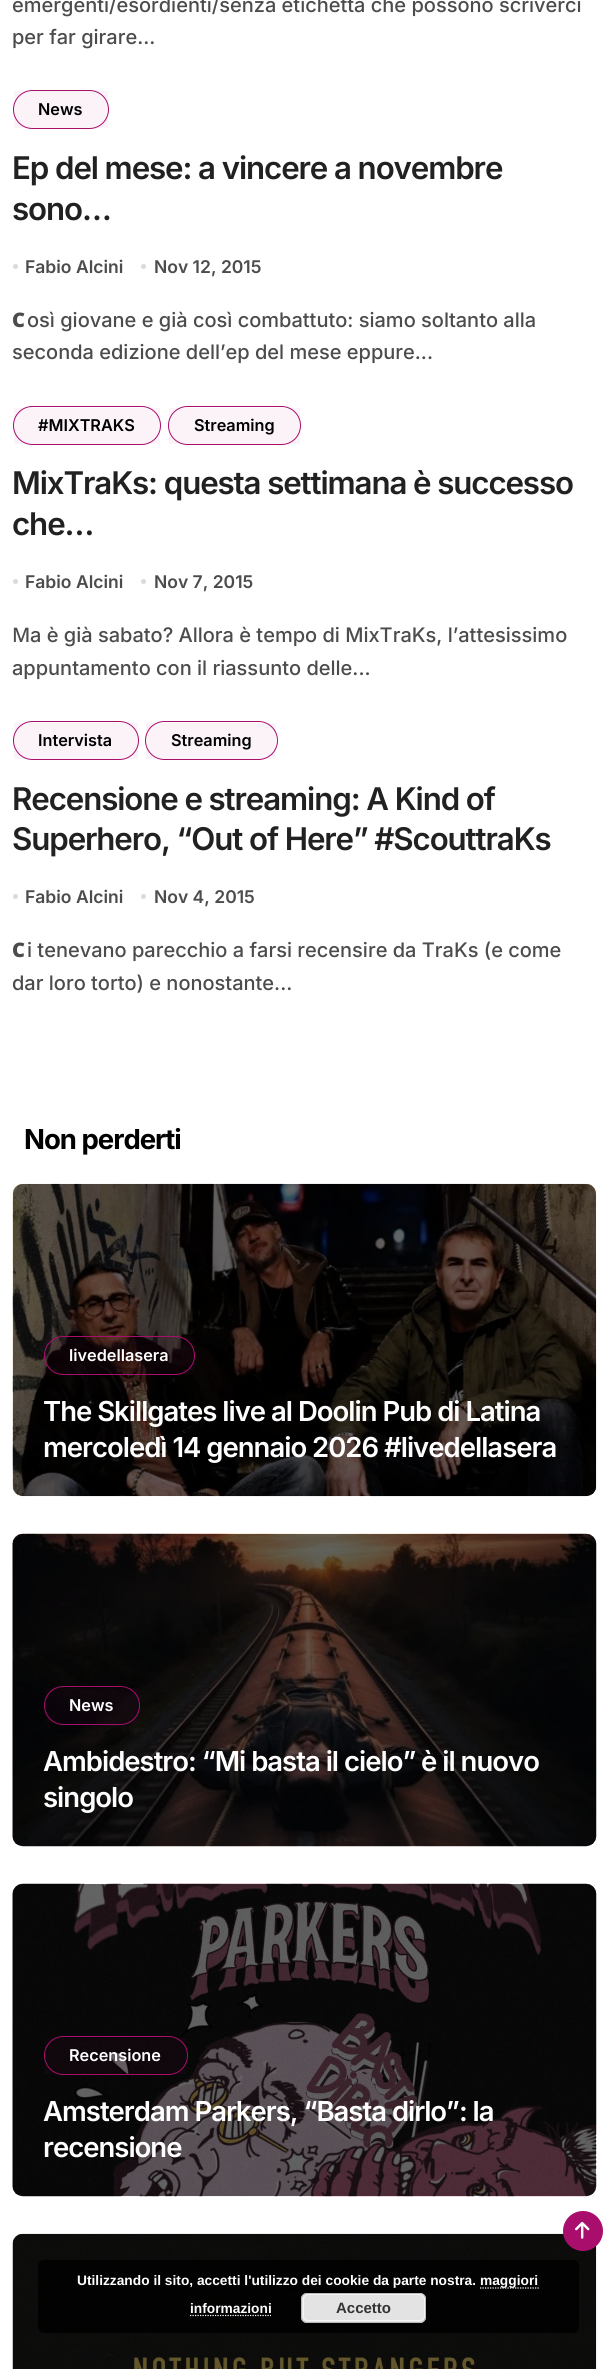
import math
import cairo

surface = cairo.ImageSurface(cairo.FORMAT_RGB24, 608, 2369)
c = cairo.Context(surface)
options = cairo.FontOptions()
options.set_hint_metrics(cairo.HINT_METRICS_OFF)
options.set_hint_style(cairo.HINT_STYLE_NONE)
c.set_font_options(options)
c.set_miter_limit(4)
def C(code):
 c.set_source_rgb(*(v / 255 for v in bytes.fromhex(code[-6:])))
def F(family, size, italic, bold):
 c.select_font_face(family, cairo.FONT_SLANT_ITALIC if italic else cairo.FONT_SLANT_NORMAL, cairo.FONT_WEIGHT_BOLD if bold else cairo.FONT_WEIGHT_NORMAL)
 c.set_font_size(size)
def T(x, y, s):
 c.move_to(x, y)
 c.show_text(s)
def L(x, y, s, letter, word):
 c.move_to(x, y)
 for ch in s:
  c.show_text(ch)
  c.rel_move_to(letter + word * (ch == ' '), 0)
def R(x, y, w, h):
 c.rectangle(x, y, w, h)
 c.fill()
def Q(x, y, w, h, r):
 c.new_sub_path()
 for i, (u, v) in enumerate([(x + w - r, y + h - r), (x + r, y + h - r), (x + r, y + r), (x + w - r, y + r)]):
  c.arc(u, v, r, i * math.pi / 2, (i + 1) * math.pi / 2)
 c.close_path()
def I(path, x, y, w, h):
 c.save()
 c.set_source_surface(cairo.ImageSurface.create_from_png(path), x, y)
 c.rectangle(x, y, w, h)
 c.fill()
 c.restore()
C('ffffff')
c.paint()
F('Inter Medium',20,0,0)
C('4c4c4c')
T(12,12,'emergenti/esordienti/senza etichetta che possono scriverci')
T(12,44,'per far girare...')
Q(13.5,90.5,95,38,19)
C('a90e6d')
c.set_line_width(1)
c.stroke()
c.set_source_rgba(0.663,0.055,0.427,0.05)
R(14,91,94,37)
F('Inter SemiBold',16.25,0,0)
C('000000')
T(38,115,'News')
F('Inter SemiBold',31.25,0,0)
C('212121')
L(12,179,'Ep del mese: a vincere a novembre',-1.1,0)
L(12,220,'sono…',-1.1,0)
C('dbdbdb')
c.new_path()
c.arc(15.5,266.5,2.5,0,2 * math.pi)
c.fill()
F('Inter SemiBold',17.5,0,0)
C('4c4c4c')
T(25,273,'Fabio Alcini')
C('dbdbdb')
c.new_path()
c.arc(143.5,266.5,2.5,0,2 * math.pi)
c.fill()
C('4c4c4c')
T(154,273,'Nov 12, 2015')
F('Noto Sans Black',20,0,0)
T(12,327,'C')
F('Inter Medium',20,0,0)
T(27,327,'osì giovane e già così combattuto: siamo soltanto alla')
T(12,359,'seconda edizione dell’ep del mese eppure...')
Q(13.5,406.5,147,38,19)
C('a90e6d')
c.stroke()
c.set_source_rgba(0.663,0.055,0.427,0.05)
R(14,408,146,36)
F('Inter SemiBold',16.25,0,0)
C('000000')
T(38,431,'#MIXTRAKS')
Q(168.5,406.5,132,38,19)
C('a90e6d')
c.stroke()
c.set_source_rgba(0.663,0.055,0.427,0.05)
R(169,408,131,36)
C('000000')
T(194,431,'Streaming')
F('Inter SemiBold',31.25,0,0)
C('212121')
L(12,494,'MixTraKs: questa settimana è successo',-1.1,0)
L(12,535,'che…',-1.1,0)
C('dbdbdb')
c.new_path()
c.arc(15.5,581.5,2.5,0,2 * math.pi)
c.fill()
F('Inter SemiBold',17.5,0,0)
C('4c4c4c')
T(25,588,'Fabio Alcini')
C('dbdbdb')
c.new_path()
c.arc(143.5,581.5,2.5,0,2 * math.pi)
c.fill()
C('4c4c4c')
T(154,588,'Nov 7, 2015')
F('Noto Sans Medium',20,0,0)
T(12,642,'M')
F('Inter Medium',20,0,0)
T(30,642,'a è già sabato? Allora è tempo di MixTraKs, l’attesissimo')
T(12,675,'appuntamento con il riassunto delle...')
Q(13.5,721.5,125,38,19)
C('a90e6d')
c.stroke()
c.set_source_rgba(0.663,0.055,0.427,0.05)
R(14,723,124,36)
F('Inter SemiBold',16.25,0,0)
C('000000')
T(38,746,'Intervista')
Q(145.5,721.5,132,38,19)
C('a90e6d')
c.stroke()
c.set_source_rgba(0.663,0.055,0.427,0.05)
R(146,723,130,36)
C('000000')
T(171,746,'Streaming')
F('Inter SemiBold',31.25,0,0)
C('212121')
L(12,810,'Recensione e streaming: A Kind of',-1.1,0)
L(12,850,'Superhero, “Out of Here” #ScouttraKs',-1.1,0)
C('dbdbdb')
c.new_path()
c.arc(15.5,896.5,2.5,0,2 * math.pi)
c.fill()
F('Inter SemiBold',17.5,0,0)
C('4c4c4c')
T(25,903,'Fabio Alcini')
C('dbdbdb')
c.new_path()
c.arc(143.5,896.5,2.5,0,2 * math.pi)
c.fill()
C('4c4c4c')
T(154,903,'Nov 4, 2015')
F('Noto Sans Black',20,0,0)
T(12,957,'C')
F('Inter Medium',20,0,0)
T(27,957,'i tenevano parecchio a farsi recensire da TraKs (e come')
T(12,990,'dar loro torto) e nonostante...')
F('Inter',27.5,0,1)
C('000000')
L(24,1149,'Non perderti',-1,0)
I('1.png',12,1183,585,314)
c.set_source_rgba(0,0,0,0.6)
Q(13,1184,583,312,10)
c.fill()
Q(44.5,1336.5,150,38,19)
C('a90e6d')
c.stroke()
c.set_source_rgba(0.663,0.055,0.427,0.05)
R(45,1338,149,36)
F('Inter SemiBold',16.25,0,0)
C('ffffff')
T(69,1361,'livedellasera')
F('Inter SemiBold',27.5,0,0)
L(43,1421,'The Skillgates live al Doolin Pub di Latina',-1,0)
L(43,1457,'mercoledì 14 gennaio 2026 #livedellasera',-1,0)
I('2.png',12,1533,585,314)
c.set_source_rgba(0,0,0,0.6)
Q(13,1534,583,312,10)
c.fill()
Q(44.5,1686.5,95,38,19)
C('a90e6d')
c.stroke()
c.set_source_rgba(0.663,0.055,0.427,0.05)
R(45,1688,94,36)
F('Inter SemiBold',16.25,0,0)
C('ffffff')
T(69,1711,'News')
F('Inter SemiBold',27.5,0,0)
L(43,1771,'Ambidestro: “Mi basta il cielo” è il nuovo',-1,0)
L(43,1807,'singolo',-1,0)
I('3.png',12,1883,585,314)
c.set_source_rgba(0,0,0,0.6)
Q(13,1884,583,312,10)
c.fill()
Q(44.5,2036.5,143,38,19)
C('a90e6d')
c.stroke()
c.set_source_rgba(0.663,0.055,0.427,0.05)
R(45,2038,141,36)
F('Inter SemiBold',16.25,0,0)
C('ffffff')
T(69,2061,'Recensione')
F('Inter SemiBold',27.5,0,0)
L(43,2121,'Amsterdam Parkers, “Basta dirlo”: la',-1,0)
L(43,2157,'recensione',-1,0)
I('4.png',12,2233,585,136)
c.set_source_rgba(0,0,0,0.6)
Q(13,2234,583,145,10)
c.fill()
C('a90e6d')
c.arc(583,2231,20,0,2 * math.pi)
c.fill()
I('5.png',575,2221,15,18)
c.set_source_rgba(0,0,0,0.85)
Q(38,2260,541,73,6)
c.fill()
F('Liberation Sans',13.75,0,1)
C('ffffff')
T(77,2285,'Utilizzando il sito, accetti l\'utilizzo dei cookie da parte nostra.')
c.new_path()
c.move_to(480,2288)
c.line_to(539,2288)
c.set_line_width(1.2)
c.set_dash([1.25,1.25])
c.stroke()
T(480,2285,'maggiori')
T(190,2313,'informazioni')
c.new_path()
c.move_to(190,2315.5)
c.line_to(271,2315.5)
c.stroke()
C('e3e3e3')
Q(301,2293,125,30,6)
c.fill()
Q(303.5,2294.5,121,26,4.5)
C('f6f6f6')
c.set_line_width(1)
c.set_dash([])
c.stroke()
Q(301.5,2293.5,124,29,5.5)
C('bbbbbb')
c.stroke()
F('Liberation Sans',15,0,1)
C('333333')
T(336,2313,'Accetto')
surface.write_to_png('o.png')
